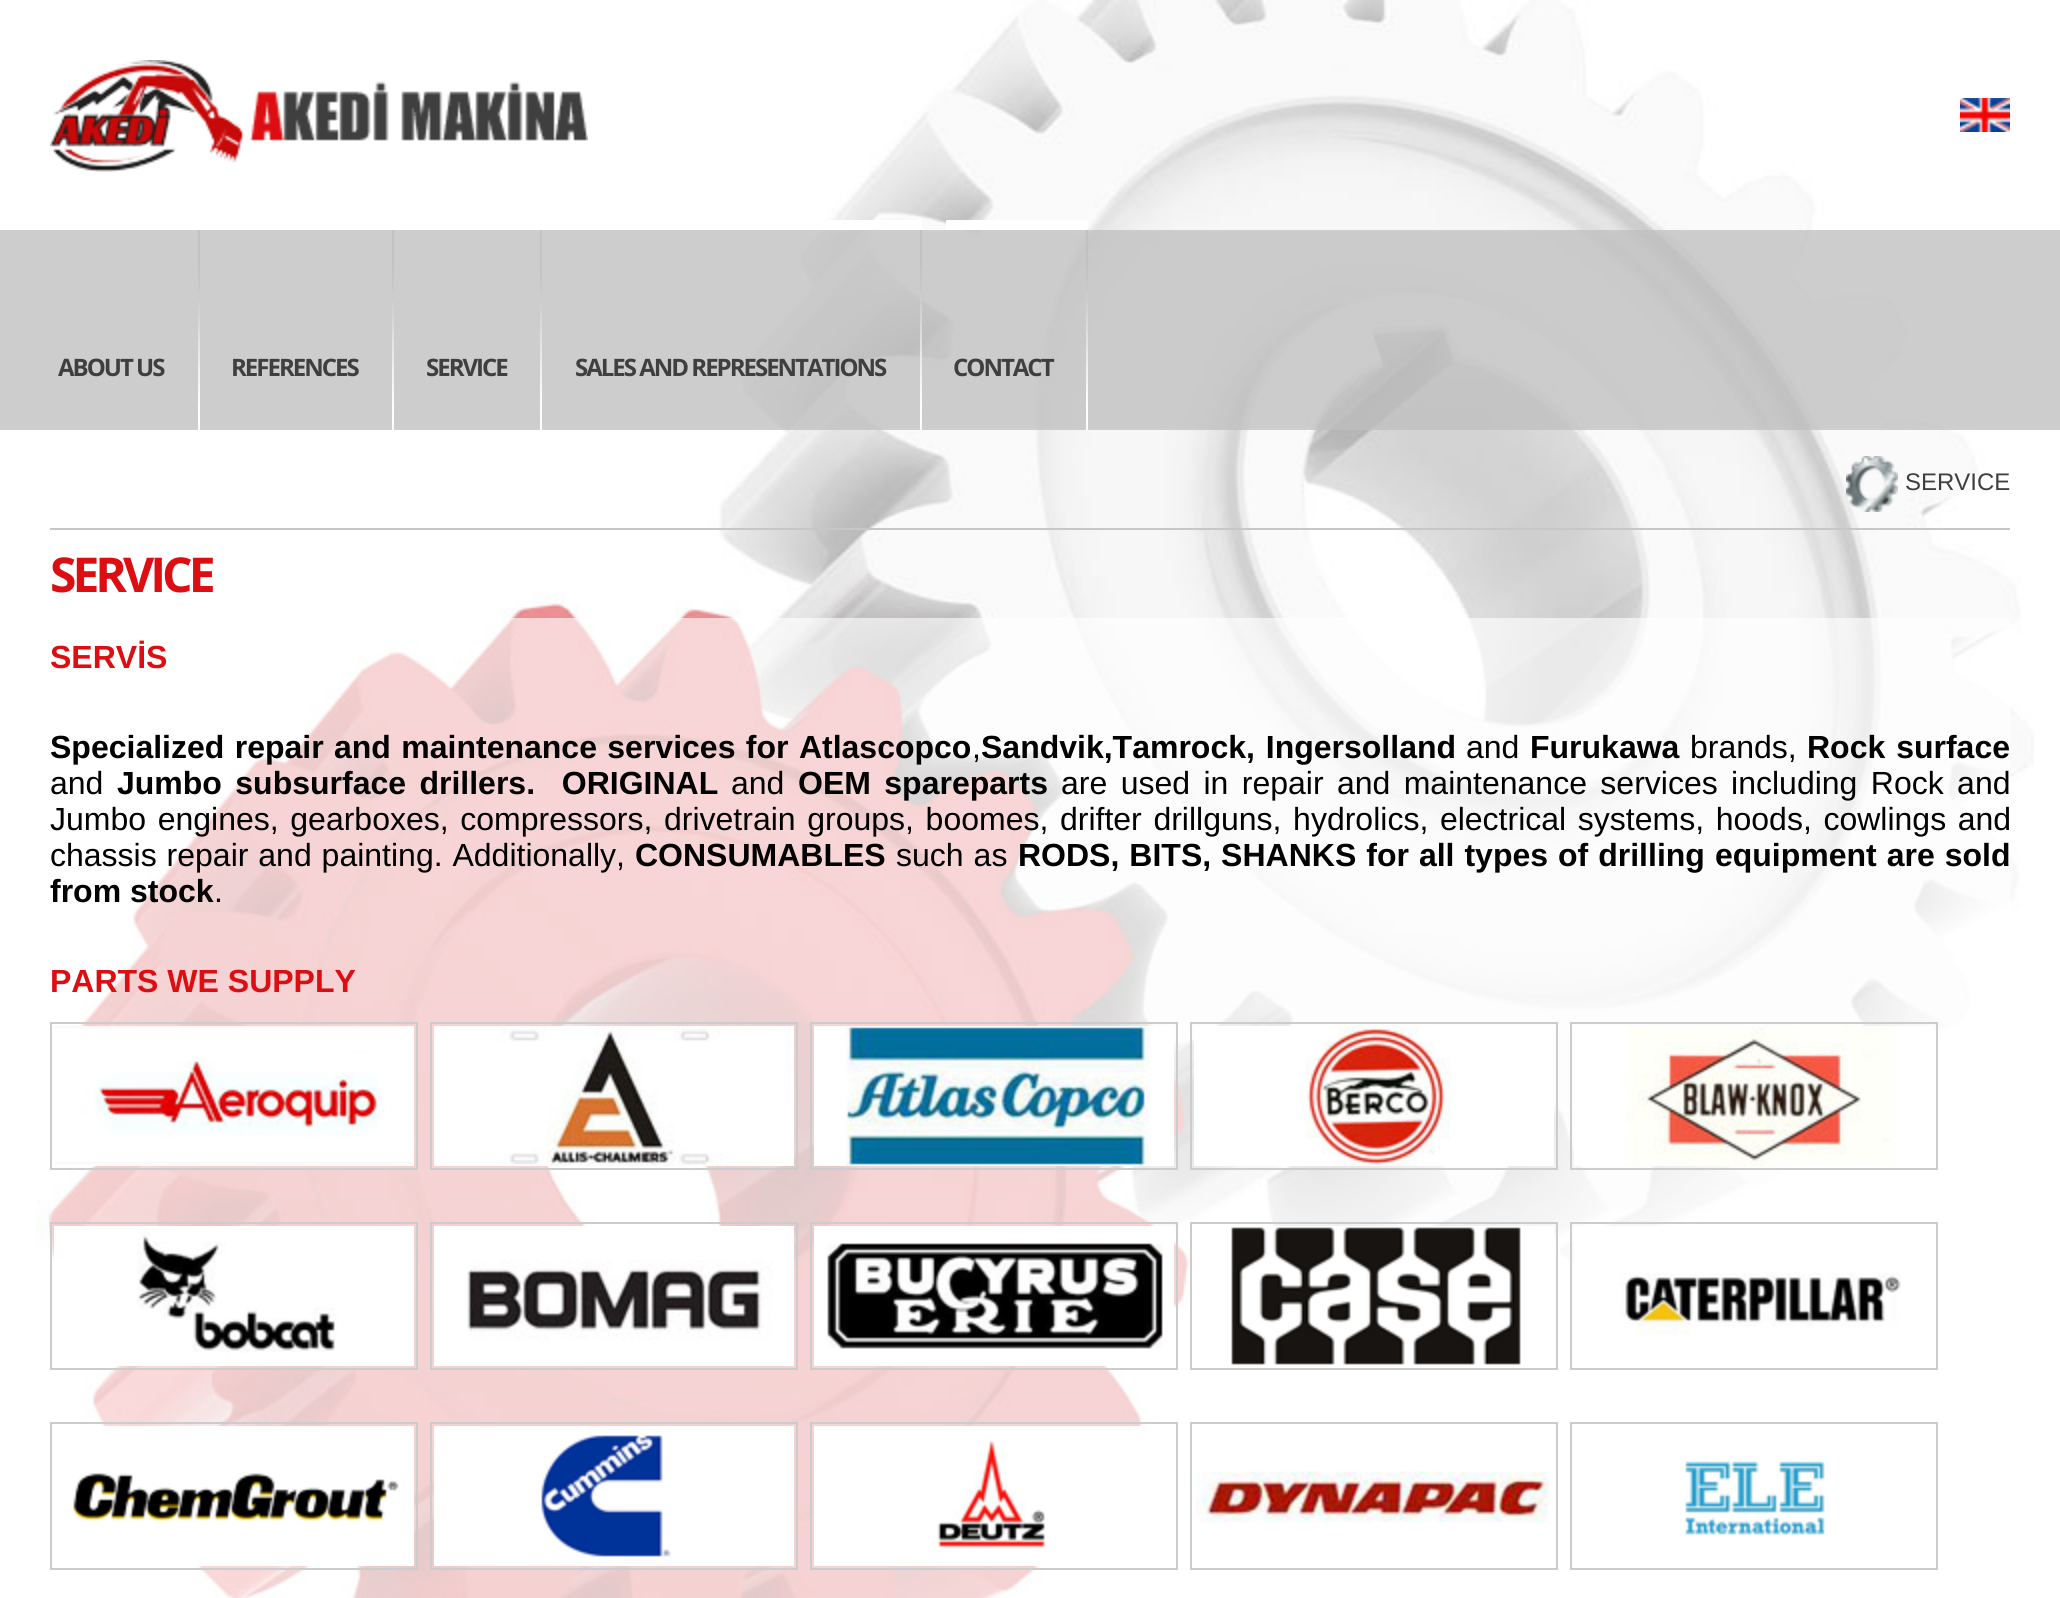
import math
import cairo

surface = cairo.ImageSurface(cairo.FORMAT_RGB24, 2060, 1598)
c = cairo.Context(surface)
options = cairo.FontOptions()
options.set_hint_metrics(cairo.HINT_METRICS_OFF)
options.set_hint_style(cairo.HINT_STYLE_NONE)
c.set_font_options(options)
c.set_miter_limit(4)
def C(code):
 c.set_source_rgb(*(v / 255 for v in bytes.fromhex(code[-6:])))
def F(family, size, italic, bold):
 c.select_font_face(family, cairo.FONT_SLANT_ITALIC if italic else cairo.FONT_SLANT_NORMAL, cairo.FONT_WEIGHT_BOLD if bold else cairo.FONT_WEIGHT_NORMAL)
 c.set_font_size(size)
def T(x, y, s):
 c.move_to(x, y)
 c.show_text(s)
def L(x, y, s, letter, word):
 c.move_to(x, y)
 for ch in s:
  c.show_text(ch)
  c.rel_move_to(letter + word * (ch == ' '), 0)
def R(x, y, w, h):
 c.rectangle(x, y, w, h)
 c.fill()
def I(path, x, y, w, h):
 c.save()
 c.set_source_surface(cairo.ImageSurface.create_from_png(path), x, y)
 c.rectangle(x, y, w, h)
 c.fill()
 c.restore()
C('ffffff')
c.paint()
I('1.png',36,0,1998,1598)
I('2.png',50,60,538,112)
I('3.png',1960,98,50,34)
I('4.png',0,230,2060,200)
I('5.png',198,230,2,200)
F('Open Sans',24,0,1)
C('403f3f')
L(58,376,'ABOUT US',-2,0)
I('5.png',392,230,2,200)
L(231,376,'REFERENCES',-2,0)
I('5.png',540,230,2,200)
L(426,376,'SERVICE',-2,0)
I('6.png',920,230,2,200)
C('ffffff')
R(821,220,101,10)
C('403f3f')
L(575,376,'SALES AND REPRESENTATIONS',-2,0)
I('7.png',1086,230,2,200)
C('ffffff')
R(946,220,142,10)
C('403f3f')
L(953,376,'CONTACT',-2,0)
C('c6c8c8')
R(50,528,1960,2)
I('8.png',1846,456,52,56)
F('Liberation Sans',24,0,0)
C('403f3f')
T(1905,490,'SERVICE')
F('Open Sans',48,0,1)
C('dc0e12')
L(50,592,'SERVICE',-4,0)
c.set_source_rgba(1,1,1,0.62)
R(50,618,1960,980)
F('Liberation Sans',32,0,1)
C('dc0e12')
T(50,668,'SERVİS')
C('000000')
L(50,758,'Specialized repair and maintenance services for Atlascopco',0,1.5)
F('Liberation Sans',32,0,0)
T(972,758,',')
F('Liberation Sans',32,0,1)
L(981,758,'Sandvik,Tamrock, Ingersolland',0,2)
F('Liberation Sans',32,0,0)
T(1466,758,'and')
F('Liberation Sans',32,0,1)
T(1530,758,'Furukawa')
F('Liberation Sans',32,0,0)
T(1690,758,'brands,')
F('Liberation Sans',32,0,1)
L(1807,758,'Rock surface',0,2)
F('Liberation Sans',32,0,0)
T(50,794,'and')
F('Liberation Sans',32,0,1)
L(117,794,'Jumbo subsurface drillers.  ORIGINAL',0,4.5)
F('Liberation Sans',32,0,0)
T(731,794,'and')
F('Liberation Sans',32,0,1)
L(798,794,'OEM spareparts',0,4.5)
F('Liberation Sans',32,0,0)
L(1061,794,'are used in repair and maintenance services including Rock and',0,4.5)
L(50,830,'Jumbo engines, gearboxes, compressors, drivetrain groups, boomes, drifter drillguns, hydrolics, electrical systems, hoods, cowlings and',0,2.75)
L(50,866,'chassis repair and painting. Additionally,',0,1)
F('Liberation Sans',32,0,1)
T(635,866,'CONSUMABLES')
F('Liberation Sans',32,0,0)
L(896,866,'such as',0,1.1)
F('Liberation Sans',32,0,1)
L(1018,866,'RODS, BITS, SHANKS for all types of drilling equipment are sold',0,1.1)
T(50,902,'from stock')
F('Liberation Sans',32,0,0)
T(214,902,'.')
F('Liberation Sans',32,0,1)
C('dc0e12')
T(50,992,'PARTS WE SUPPLY')
c.rectangle(51,1023,366,146)
C('cccccc')
c.stroke()
I('9.png',54,1026,360,140)
c.rectangle(431,1023,366,146)
c.stroke()
I('10.png',434,1026,360,140)
c.rectangle(811,1023,366,146)
c.stroke()
I('11.png',814,1026,360,140)
c.rectangle(1191,1023,366,146)
c.stroke()
I('12.png',1194,1026,360,140)
c.rectangle(1571,1023,366,146)
c.stroke()
I('13.png',1574,1026,360,140)
c.rectangle(51,1223,366,146)
c.stroke()
I('14.png',54,1226,360,140)
c.rectangle(431,1223,366,146)
c.stroke()
I('15.png',434,1226,360,140)
c.rectangle(811,1223,366,146)
c.stroke()
I('16.png',814,1226,360,140)
c.rectangle(1191,1223,366,146)
c.stroke()
I('17.png',1231,1226,323,139)
c.rectangle(1571,1223,366,146)
c.stroke()
I('18.png',1574,1226,327,110)
c.rectangle(51,1423,366,146)
c.stroke()
I('19.png',73,1426,341,140)
c.rectangle(431,1423,366,146)
c.stroke()
I('20.png',434,1426,360,140)
c.rectangle(811,1423,366,146)
c.stroke()
I('21.png',814,1426,328,140)
c.rectangle(1191,1423,366,146)
c.stroke()
I('22.png',1196,1471,353,52)
c.rectangle(1571,1423,366,146)
c.stroke()
I('23.png',1685,1461,140,74)
surface.write_to_png('o.png')
